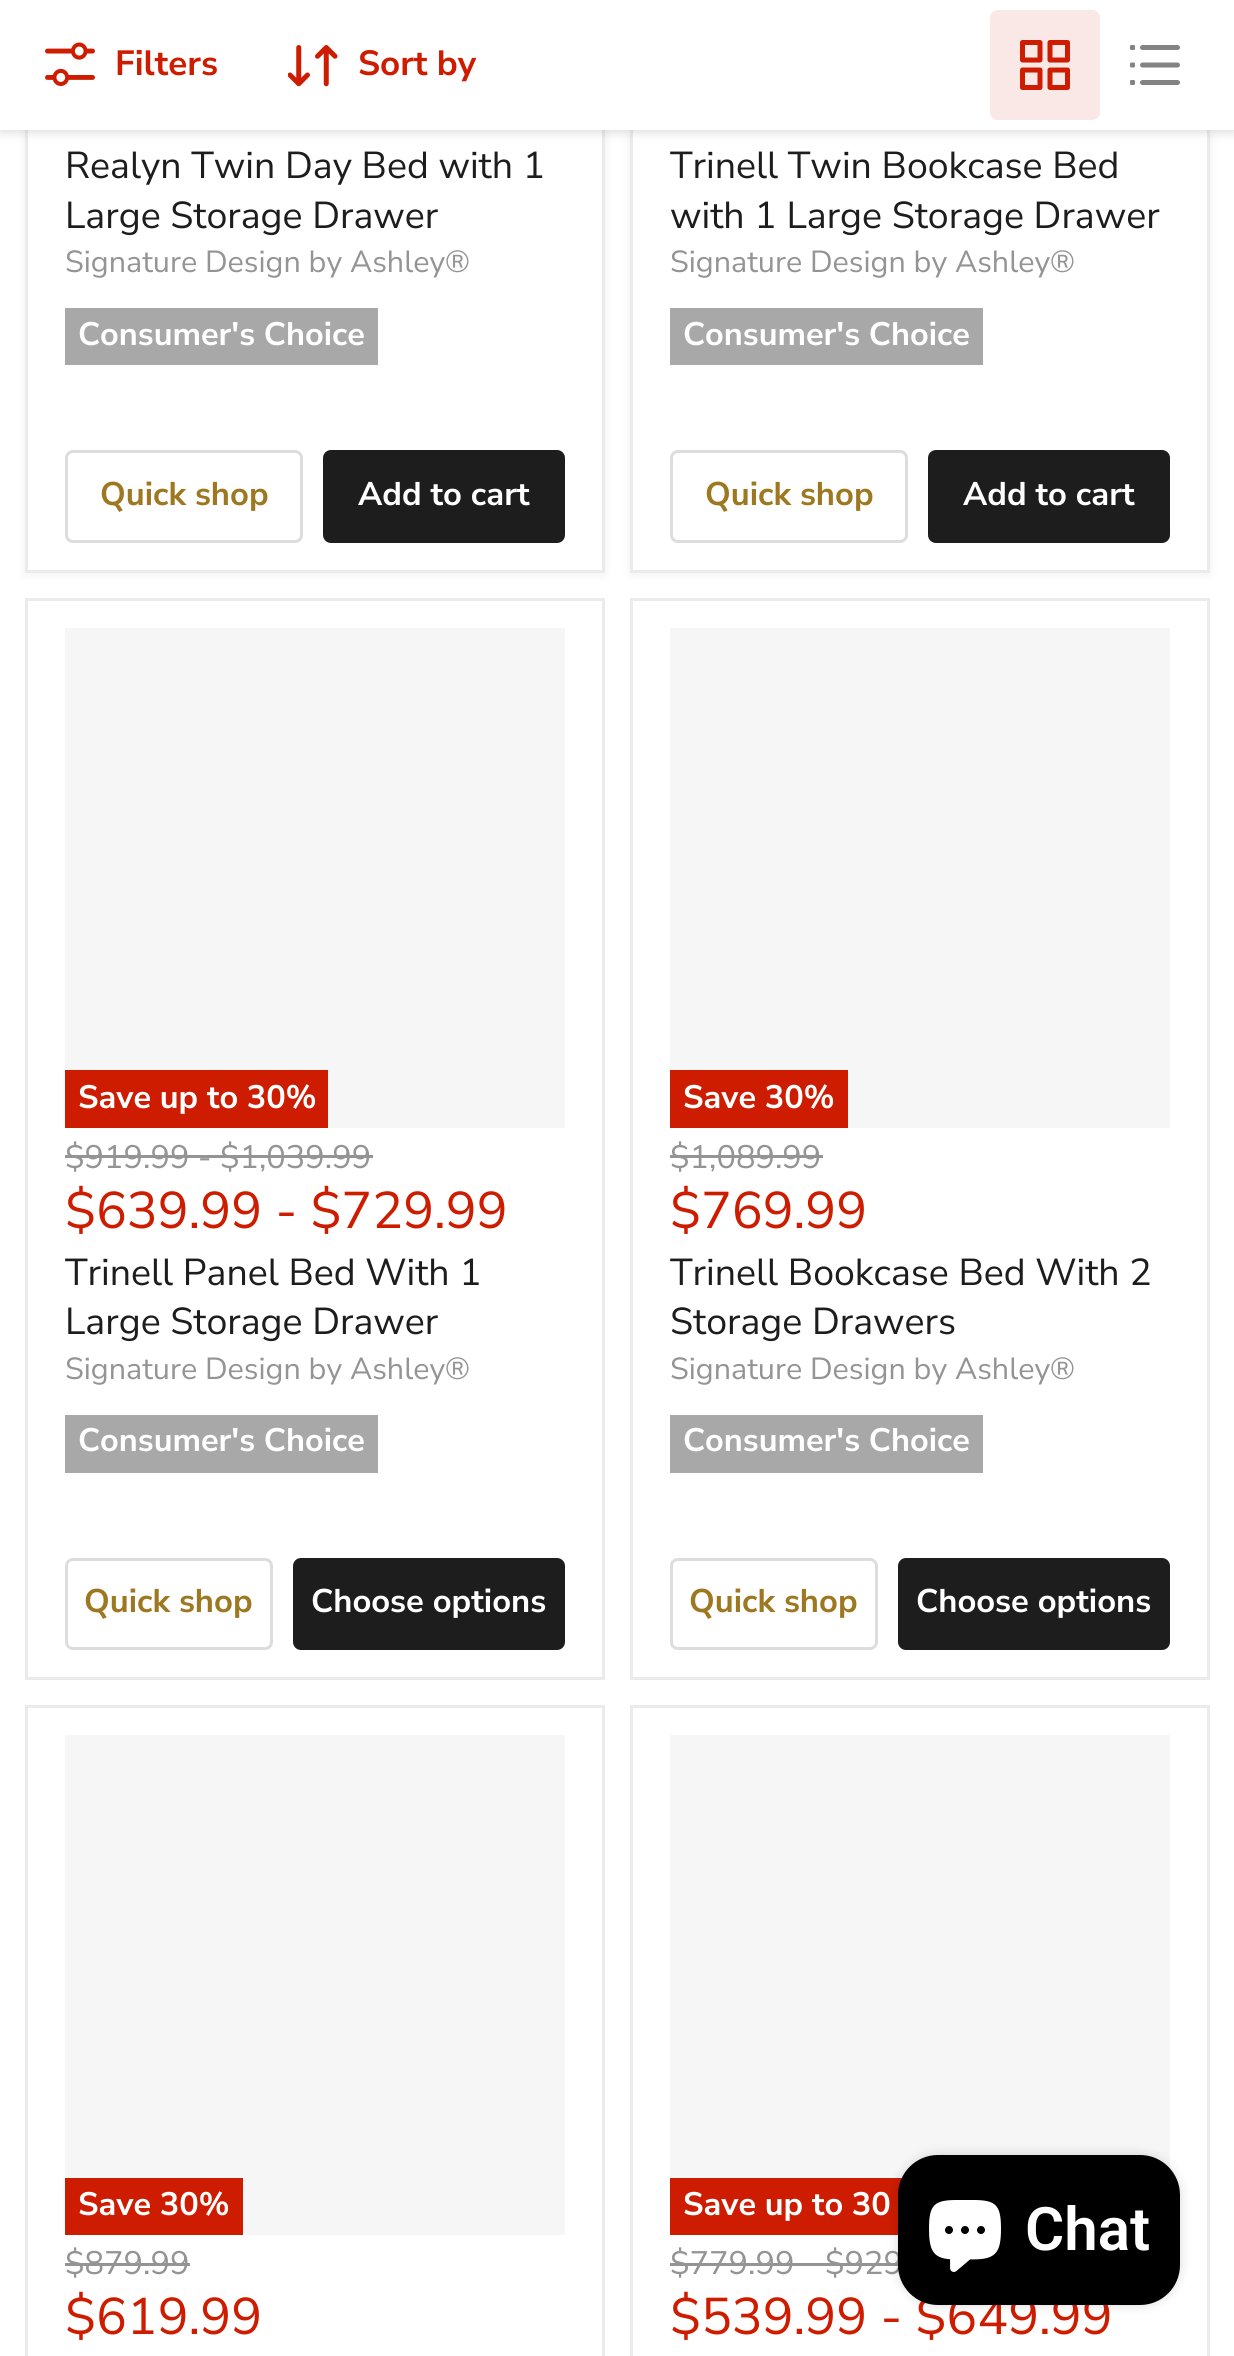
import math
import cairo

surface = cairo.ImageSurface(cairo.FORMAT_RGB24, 1234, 2356)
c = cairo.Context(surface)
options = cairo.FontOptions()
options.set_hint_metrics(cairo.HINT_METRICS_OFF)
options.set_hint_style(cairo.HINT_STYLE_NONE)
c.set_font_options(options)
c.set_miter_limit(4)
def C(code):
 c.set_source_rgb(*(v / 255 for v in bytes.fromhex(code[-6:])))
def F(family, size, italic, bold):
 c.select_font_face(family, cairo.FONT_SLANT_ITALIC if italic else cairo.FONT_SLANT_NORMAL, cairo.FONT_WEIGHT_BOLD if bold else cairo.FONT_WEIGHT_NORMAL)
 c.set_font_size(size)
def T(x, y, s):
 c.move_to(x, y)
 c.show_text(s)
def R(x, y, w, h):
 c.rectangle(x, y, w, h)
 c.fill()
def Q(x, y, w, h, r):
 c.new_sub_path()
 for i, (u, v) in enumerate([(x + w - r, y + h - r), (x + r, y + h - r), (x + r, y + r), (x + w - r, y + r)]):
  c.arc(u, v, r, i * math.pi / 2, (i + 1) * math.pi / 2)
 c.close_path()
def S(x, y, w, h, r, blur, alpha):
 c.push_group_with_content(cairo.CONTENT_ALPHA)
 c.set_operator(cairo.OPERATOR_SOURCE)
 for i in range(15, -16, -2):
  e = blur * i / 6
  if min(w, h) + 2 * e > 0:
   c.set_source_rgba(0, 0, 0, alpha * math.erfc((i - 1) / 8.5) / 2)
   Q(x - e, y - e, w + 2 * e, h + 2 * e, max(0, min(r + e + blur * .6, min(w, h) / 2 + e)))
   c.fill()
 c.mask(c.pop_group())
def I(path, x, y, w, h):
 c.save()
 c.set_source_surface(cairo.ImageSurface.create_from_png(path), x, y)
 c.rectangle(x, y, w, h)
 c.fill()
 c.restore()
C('ffffff')
c.paint()
C('808080')
S(25,-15,580,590,0,5,.11)
C('ffffff')
R(28,130,574,440)
c.rectangle(26.5,-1.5,577,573)
C('ebebeb')
c.set_line_width(3)
c.stroke()
C('808080')
S(630,-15,580,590,0,5,.11)
C('ffffff')
R(633,130,574,440)
c.rectangle(631.5,-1.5,577,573)
C('ebebeb')
c.stroke()
C('808080')
S(0,3,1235,130,0,5,.25)
C('ffffff')
R(0,0,1234,130)
I('1.png',45,42,50,44)
F('Nunito Sans',35,0,1)
C('ce1c00')
T(115,75,'Filters')
I('2.png',288,45,50,42)
T(358,75,'Sort by')
C('fae8e6')
Q(990,10,110,110,8)
c.fill()
I('3.png',1020,40,50,50)
I('4.png',1130,45,50,40)
F('Nunito Sans',37.5,0,0)
C('1d1d1d')
T(65,178,'Realyn Twin Day Bed with 1')
T(65,228,'Large Storage Drawer')
F('Nunito Sans',30.5,0,0)
C('949494')
T(65,272,'Signature Design by Ashley®')
C('a8a8a8')
R(65,308,313,57)
F('Nunito Sans',32.5,0,1)
C('ffffff')
T(78,345,'Consumer\'s Choice')
Q(66.5,451.5,235,90,6.5)
C('dddddd')
c.stroke()
F('Nunito Sans',32.75,0,1)
C('9e7820')
T(100,505,'Quick shop')
C('1d1d1d')
Q(324.5,451.5,239,90,6.5)
c.fill_preserve()
c.stroke()
C('ffffff')
T(358,505,'Add to cart')
F('Nunito Sans',37.5,0,0)
C('1d1d1d')
T(670,178,'Trinell Twin Bookcase Bed')
T(670,228,'with 1 Large Storage Drawer')
F('Nunito Sans',30.5,0,0)
C('949494')
T(670,272,'Signature Design by Ashley®')
C('a8a8a8')
R(670,308,313,57)
F('Nunito Sans',32.5,0,1)
C('ffffff')
T(683,345,'Consumer\'s Choice')
Q(671.5,451.5,235,90,6.5)
C('dddddd')
c.stroke()
F('Nunito Sans',32.75,0,1)
C('9e7820')
T(705,505,'Quick shop')
C('1d1d1d')
Q(929.5,451.5,239,90,6.5)
c.fill_preserve()
c.stroke()
C('ffffff')
T(963,505,'Add to cart')
c.rectangle(26.5,599.5,577,1079)
C('ebebeb')
c.stroke()
C('f6f6f6')
R(65,628,500,500)
C('ce1c00')
R(65,1070,263,58)
F('Nunito Sans',32.5,0,1)
C('ffffff')
T(78,1108,'Save up to 30%')
F('Nunito Sans',32.5,0,0)
C('949494')
T(65,1168,'$919.99 - $1,039.99')
R(65,1155,308,3)
F('Nunito Sans',51.5,0,0)
C('ce1c00')
T(65,1228,'$639.99 - $729.99')
F('Nunito Sans',37.5,0,0)
C('1d1d1d')
T(65,1285,'Trinell Panel Bed With 1')
T(65,1334,'Large Storage Drawer')
F('Nunito Sans',30.5,0,0)
C('949494')
T(65,1379,'Signature Design by Ashley®')
C('a8a8a8')
R(65,1415,313,58)
F('Nunito Sans',32.5,0,1)
C('ffffff')
T(78,1451,'Consumer\'s Choice')
Q(66.5,1559.5,205,89,6.5)
C('dddddd')
c.stroke()
F('Nunito Sans',32.75,0,1)
C('9e7820')
T(84,1612,'Quick shop')
C('1d1d1d')
Q(294.5,1559.5,269,89,6.5)
c.fill_preserve()
c.stroke()
C('ffffff')
T(311,1612,'Choose options')
c.rectangle(631.5,599.5,577,1079)
C('ebebeb')
c.stroke()
C('f6f6f6')
R(670,628,500,500)
C('ce1c00')
R(670,1070,178,58)
F('Nunito Sans',32.5,0,1)
C('ffffff')
T(683,1108,'Save 30%')
F('Nunito Sans',32.5,0,0)
C('949494')
T(670,1168,'$1,089.99')
R(670,1155,153,3)
F('Nunito Sans',51.5,0,0)
C('ce1c00')
T(670,1228,'$769.99')
F('Nunito Sans',37.5,0,0)
C('1d1d1d')
T(670,1285,'Trinell Bookcase Bed With 2')
T(670,1334,'Storage Drawers')
F('Nunito Sans',30.5,0,0)
C('949494')
T(670,1379,'Signature Design by Ashley®')
C('a8a8a8')
R(670,1415,313,58)
F('Nunito Sans',32.5,0,1)
C('ffffff')
T(683,1451,'Consumer\'s Choice')
Q(671.5,1559.5,205,89,6.5)
C('dddddd')
c.stroke()
F('Nunito Sans',32.75,0,1)
C('9e7820')
T(689,1612,'Quick shop')
C('1d1d1d')
Q(899.5,1559.5,269,89,6.5)
c.fill_preserve()
c.stroke()
C('ffffff')
T(916,1612,'Choose options')
c.rectangle(26.5,1706.5,577,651)
C('ebebeb')
c.stroke()
C('f6f6f6')
R(65,1735,500,500)
C('ce1c00')
R(65,2178,178,57)
F('Nunito Sans',32.5,0,1)
C('ffffff')
T(78,2215,'Save 30%')
F('Nunito Sans',32.5,0,0)
C('949494')
T(65,2274,'$879.99')
R(65,2263,125,3)
F('Nunito Sans',51.5,0,0)
C('ce1c00')
T(65,2334,'$619.99')
c.rectangle(631.5,1706.5,577,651)
C('ebebeb')
c.stroke()
C('f6f6f6')
R(670,1735,500,443)
C('ce1c00')
R(670,2178,232,57)
F('Nunito Sans',32.5,0,1)
C('ffffff')
T(683,2215,'Save up to 30')
F('Nunito Sans',32.5,0,0)
C('949494')
T(670,2274,'$779.99')
R(670,2263,155,3)
T(825,2274,'$929')
R(825,2263,74,3)
F('Nunito Sans',51.5,0,0)
C('ce1c00')
T(670,2334,'$539.99 - $649.99')
C('000000')
S(898,2155,282,150,40,6,.15)
C('000000')
Q(898,2155,282,150,40)
c.fill()
I('5.png',929,2200,72,72)
F('Roboto SemiBold',60,0,0)
C('ffffff')
T(1025,2250,'Chat')
surface.write_to_png('o.png')
